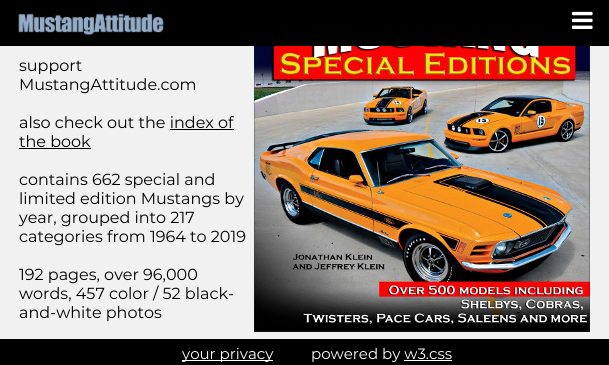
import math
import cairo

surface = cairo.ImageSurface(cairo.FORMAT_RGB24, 609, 365)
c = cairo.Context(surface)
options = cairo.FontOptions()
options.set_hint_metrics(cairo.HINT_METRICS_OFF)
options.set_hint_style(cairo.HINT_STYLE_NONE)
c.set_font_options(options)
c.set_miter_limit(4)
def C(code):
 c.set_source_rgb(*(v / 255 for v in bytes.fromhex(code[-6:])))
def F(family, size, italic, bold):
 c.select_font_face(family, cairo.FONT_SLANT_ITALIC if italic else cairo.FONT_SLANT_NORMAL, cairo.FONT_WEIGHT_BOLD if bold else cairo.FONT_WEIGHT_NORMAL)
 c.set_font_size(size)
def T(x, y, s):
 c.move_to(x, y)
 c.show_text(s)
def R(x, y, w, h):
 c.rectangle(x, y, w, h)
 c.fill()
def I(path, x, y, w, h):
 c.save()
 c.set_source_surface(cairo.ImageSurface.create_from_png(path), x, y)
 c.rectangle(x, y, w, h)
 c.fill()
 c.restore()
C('f1f1f1')
c.paint()
C('000000')
R(0,0,609,46)
I('1.png',18,13,146,23)
I('2.png',572,11,21,18)
F('Montserrat Thin',16,0,0)
T(19,71,'support')
T(19,90,'MustangAttitude.com')
T(19,128,'also check out the index of')
T(19,147,'the book')
R(170,129,64,1)
R(19,148,72,1)
T(19,185,'contains 662 special and')
T(19,204,'limited edition Mustangs by')
T(19,223,'year, grouped into 217')
T(19,242,'categories from 1964 to 2019')
T(19,280,'192 pages, over 96,000')
T(19,299,'words, 457 color / 52 black-')
T(19,318,'and-white photos')
I('3.png',254,46,336,286)
R(0,339,609,26)
C('ffffff')
R(182,360,91,1)
F('Montserrat Thin',15,0,0)
T(182,359,'your privacy')
T(311,359,'powered by w3.css')
R(404,360,48,1)
surface.write_to_png('o.png')
